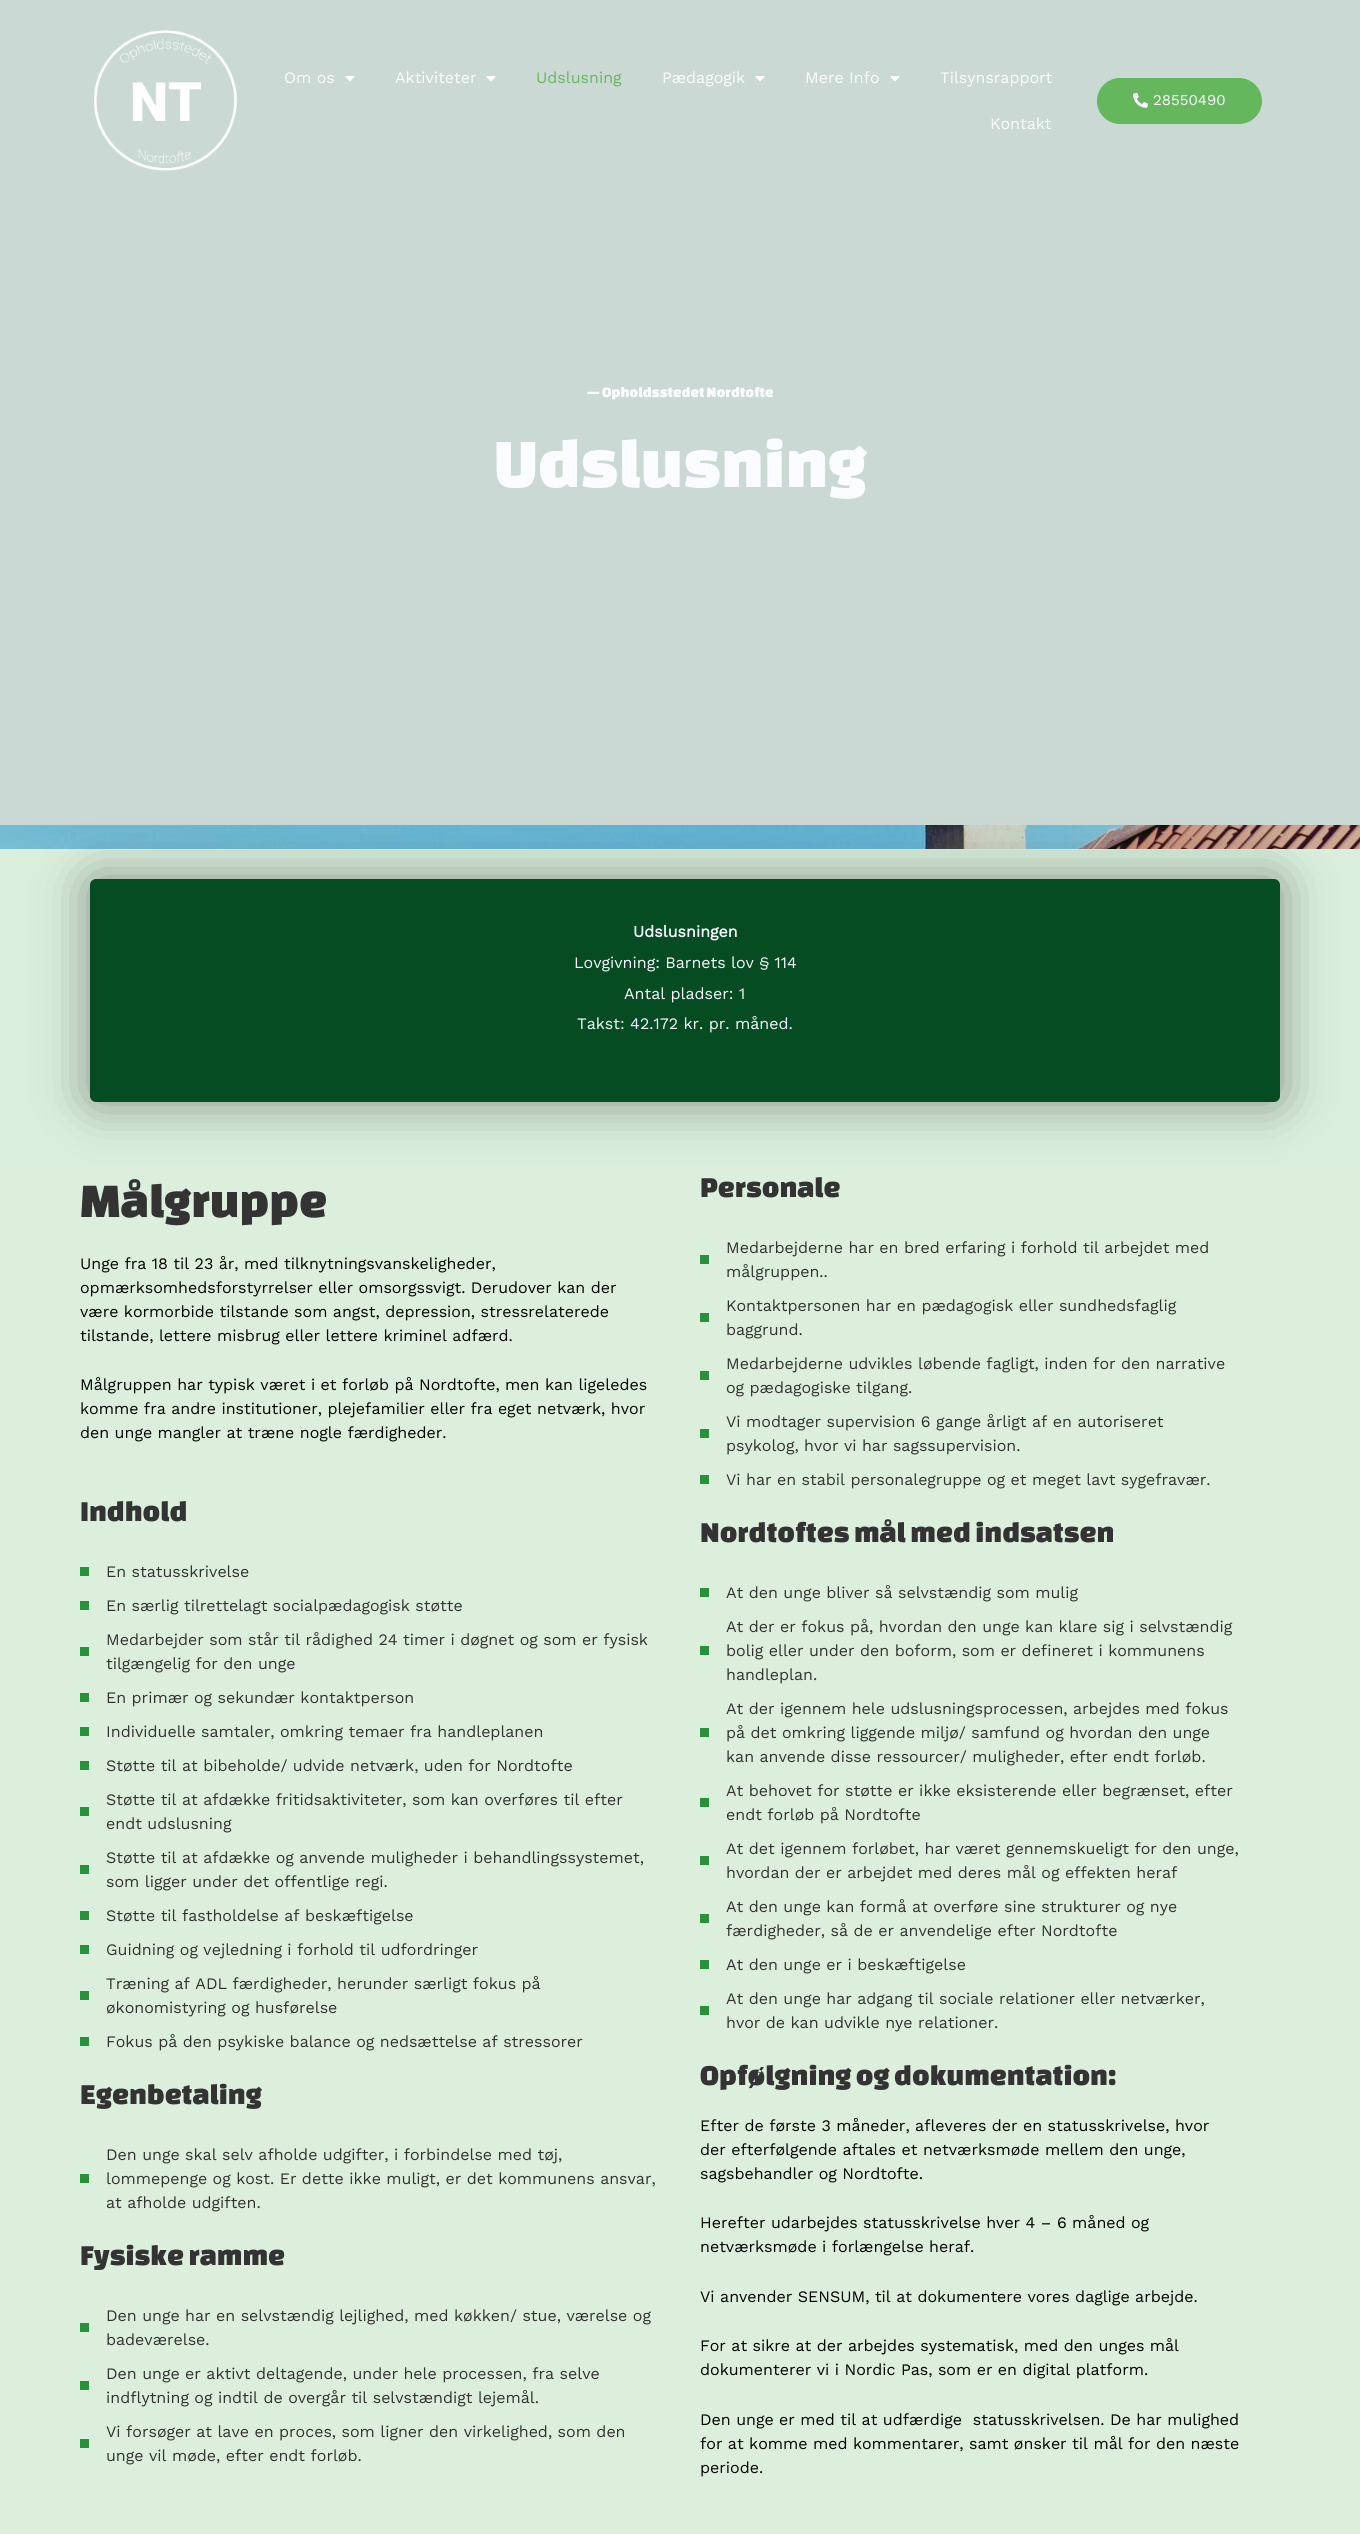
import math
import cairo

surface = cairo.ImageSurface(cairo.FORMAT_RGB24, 1360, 2534)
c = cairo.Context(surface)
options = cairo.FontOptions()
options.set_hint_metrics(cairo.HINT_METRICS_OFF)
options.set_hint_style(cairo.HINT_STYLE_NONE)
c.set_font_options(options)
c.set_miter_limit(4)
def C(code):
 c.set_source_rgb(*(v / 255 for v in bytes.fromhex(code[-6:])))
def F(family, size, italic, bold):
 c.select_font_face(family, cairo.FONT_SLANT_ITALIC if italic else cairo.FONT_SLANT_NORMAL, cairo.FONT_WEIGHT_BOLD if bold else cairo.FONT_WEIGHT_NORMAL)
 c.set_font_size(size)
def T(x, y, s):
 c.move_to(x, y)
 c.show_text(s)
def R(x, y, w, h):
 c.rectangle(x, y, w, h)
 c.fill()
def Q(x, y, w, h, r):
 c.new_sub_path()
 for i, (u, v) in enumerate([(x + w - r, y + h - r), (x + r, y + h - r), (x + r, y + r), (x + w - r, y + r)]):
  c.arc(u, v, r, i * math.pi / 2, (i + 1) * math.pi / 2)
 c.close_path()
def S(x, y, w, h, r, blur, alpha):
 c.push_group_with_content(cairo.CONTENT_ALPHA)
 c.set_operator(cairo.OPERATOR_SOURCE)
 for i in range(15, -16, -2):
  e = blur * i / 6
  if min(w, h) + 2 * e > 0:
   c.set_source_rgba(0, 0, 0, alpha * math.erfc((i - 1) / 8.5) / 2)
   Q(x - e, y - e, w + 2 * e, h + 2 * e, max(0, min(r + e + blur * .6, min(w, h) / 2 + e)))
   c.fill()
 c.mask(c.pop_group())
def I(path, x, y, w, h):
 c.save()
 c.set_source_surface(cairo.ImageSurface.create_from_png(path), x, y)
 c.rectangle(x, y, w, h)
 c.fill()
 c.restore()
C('cad9d3')
c.paint()
I('1.png',94,30,144,141)
F('Work Sans',16,0,0)
C('fbfcff')
T(284,83,'Om os')
I('2.png',345,76,10,6)
T(395,83,'Aktiviteter')
I('2.png',486,76,10,6)
C('64b75c')
T(536,83,'Udslusning')
C('fbfcff')
T(662,83,'Pædagogik')
I('2.png',755,76,10,6)
T(805,83,'Mere Info')
I('2.png',890,76,10,6)
T(940,83,'Tilsynsrapport')
T(990,129,'Kontakt')
C('64b75c')
Q(1097,78,165,46,23)
c.fill()
I('3.png',1133,92,15,16)
F('Work Sans',15,0,0)
C('fbfcff')
T(1153,105,'28550490')
I('4.png',0,825,1360,24)
F('Changa One',15,0,0)
T(587,397,'— Opholdsstedet Nordtofte')
F('Changa One',72,0,0)
T(494,487,'Udslusning')
C('d9eedc')
R(0,849,1360,318)
C('000000')
S(90,879,1190,223,6,25,.4)
C('054c23')
Q(90,879,1190,223,6)
c.fill()
F('Work Sans',16,0,1)
C('fbfcff')
T(633,937,'Udslusningen')
F('Work Sans',16,0,0)
T(574,968,'Lovgivning: Barnets lov § 114')
T(624,999,'Antal pladser: 1')
T(577,1029,'Takst: 42.172 kr. pr. måned.')
C('dcefdc')
R(0,1167,1360,1367)
F('Changa One',50,0,0)
C('333333')
T(80,1217,'Målgruppe')
F('Work Sans',16,0,0)
C('000000')
T(80,1269,'Unge fra 18 til 23 år, med tilknytningsvanskeligheder,')
T(80,1293,'opmærksomhedsforstyrrelser eller omsorgssvigt. Derudover kan der')
T(80,1317,'være kormorbide tilstande som angst, depression, stressrelaterede')
T(80,1341,'tilstande, lettere misbrug eller lettere kriminel adfærd.')
T(80,1390,'Målgruppen har typisk været i et forløb på Nordtofte, men kan ligeledes')
T(80,1414,'komme fra andre institutioner, plejefamilier eller fra eget netværk, hvor')
T(80,1438,'den unge mangler at træne nogle færdigheder.')
F('Changa One',30,0,0)
C('333333')
T(80,1521,'Indhold')
C('2a913b')
R(80,1567,9,9)
F('Work Sans',16,0,0)
C('333333')
T(106,1577,'En statusskrivelse')
C('2a913b')
R(80,1601,9,9)
C('333333')
T(106,1611,'En særlig tilrettelagt socialpædagogisk støtte')
C('2a913b')
R(80,1647,9,9)
C('333333')
T(106,1645,'Medarbejder som står til rådighed 24 timer i døgnet og som er fysisk')
T(106,1669,'tilgængelig for den unge')
C('2a913b')
R(80,1693,9,9)
C('333333')
T(106,1703,'En primær og sekundær kontaktperson')
C('2a913b')
R(80,1727,9,9)
C('333333')
T(106,1737,'Individuelle samtaler, omkring temaer fra handleplanen')
C('2a913b')
R(80,1761,9,9)
C('333333')
T(106,1771,'Støtte til at bibeholde/ udvide netværk, uden for Nordtofte')
C('2a913b')
R(80,1807,9,9)
C('333333')
T(106,1805,'Støtte til at afdække fritidsaktiviteter, som kan overføres til efter')
T(106,1829,'endt udslusning')
C('2a913b')
R(80,1865,9,9)
C('333333')
T(106,1863,'Støtte til at afdække og anvende muligheder i behandlingssystemet,')
T(106,1887,'som ligger under det offentlige regi.')
C('2a913b')
R(80,1911,9,9)
C('333333')
T(106,1921,'Støtte til fastholdelse af beskæftigelse')
C('2a913b')
R(80,1945,9,9)
C('333333')
T(106,1955,'Guidning og vejledning i forhold til udfordringer')
C('2a913b')
R(80,1991,9,9)
C('333333')
T(106,1989,'Træning af ADL færdigheder, herunder særligt fokus på')
T(106,2013,'økonomistyring og husførelse')
C('2a913b')
R(80,2037,9,9)
C('333333')
T(106,2047,'Fokus på den psykiske balance og nedsættelse af stressorer')
F('Changa One',30,0,0)
T(80,2104,'Egenbetaling')
C('2a913b')
R(80,2174,9,9)
F('Work Sans',16,0,0)
C('333333')
T(106,2160,'Den unge skal selv afholde udgifter, i forbindelse med tøj,')
T(106,2184,'lommepenge og kost. Er dette ikke muligt, er det kommunens ansvar,')
T(106,2208,'at afholde udgiften.')
F('Changa One',30,0,0)
T(80,2265,'Fysiske ramme')
C('2a913b')
R(80,2323,9,9)
F('Work Sans',16,0,0)
C('333333')
T(106,2321,'Den unge har en selvstændig lejlighed, med køkken/ stue, værelse og')
T(106,2345,'badeværelse.')
C('2a913b')
R(80,2381,9,9)
C('333333')
T(106,2379,'Den unge er aktivt deltagende, under hele processen, fra selve')
T(106,2403,'indflytning og indtil de overgår til selvstændigt lejemål.')
C('2a913b')
R(80,2439,9,9)
C('333333')
T(106,2437,'Vi forsøger at lave en proces, som ligner den virkelighed, som den')
T(106,2461,'unge vil møde, efter endt forløb.')
F('Changa One',30,0,0)
T(700,1197,'Personale')
C('2a913b')
R(700,1255,9,9)
F('Work Sans',16,0,0)
C('333333')
T(726,1253,'Medarbejderne har en bred erfaring i forhold til arbejdet med')
T(726,1277,'målgruppen..')
C('2a913b')
R(700,1313,9,9)
C('333333')
T(726,1311,'Kontaktpersonen har en pædagogisk eller sundhedsfaglig')
T(726,1335,'baggrund.')
C('2a913b')
R(700,1371,9,9)
C('333333')
T(726,1369,'Medarbejderne udvikles løbende fagligt, inden for den narrative')
T(726,1393,'og pædagogiske tilgang.')
C('2a913b')
R(700,1429,9,9)
C('333333')
T(726,1427,'Vi modtager supervision 6 gange årligt af en autoriseret')
T(726,1451,'psykolog, hvor vi har sagssupervision.')
C('2a913b')
R(700,1475,9,9)
C('333333')
T(726,1485,'Vi har en stabil personalegruppe og et meget lavt sygefravær.')
F('Changa One',30,0,0)
T(700,1542,'Nordtoftes mål med indsatsen')
C('2a913b')
R(700,1588,9,9)
F('Work Sans',16,0,0)
C('333333')
T(726,1598,'At den unge bliver så selvstændig som mulig')
C('2a913b')
R(700,1646,9,9)
C('333333')
T(726,1632,'At der er fokus på, hvordan den unge kan klare sig i selvstændig')
T(726,1656,'bolig eller under den boform, som er defineret i kommunens')
T(726,1680,'handleplan.')
C('2a913b')
R(700,1728,9,9)
C('333333')
T(726,1714,'At der igennem hele udslusningsprocessen, arbejdes med fokus')
T(726,1738,'på det omkring liggende miljø/ samfund og hvordan den unge')
T(726,1762,'kan anvende disse ressourcer/ muligheder, efter endt forløb.')
C('2a913b')
R(700,1798,9,9)
C('333333')
T(726,1796,'At behovet for støtte er ikke eksisterende eller begrænset, efter')
T(726,1820,'endt forløb på Nordtofte')
C('2a913b')
R(700,1856,9,9)
C('333333')
T(726,1854,'At det igennem forløbet, har været gennemskueligt for den unge,')
T(726,1878,'hvordan der er arbejdet med deres mål og effekten heraf')
C('2a913b')
R(700,1914,9,9)
C('333333')
T(726,1912,'At den unge kan formå at overføre sine strukturer og nye')
T(726,1936,'færdigheder, så de er anvendelige efter Nordtofte')
C('2a913b')
R(700,1960,9,9)
C('333333')
T(726,1970,'At den unge er i beskæftigelse')
C('2a913b')
R(700,2006,9,9)
C('333333')
T(726,2004,'At den unge har adgang til sociale relationer eller netværker,')
T(726,2028,'hvor de kan udvikle nye relationer.')
F('Changa One',30,0,0)
T(700,2085,'Opfølgning og dokumentation:')
F('Work Sans',16,0,0)
C('000000')
T(700,2131,'Efter de første 3 måneder, afleveres der en statusskrivelse, hvor')
T(700,2155,'der efterfølgende aftales et netværksmøde mellem den unge,')
T(700,2179,'sagsbehandler og Nordtofte.')
T(700,2228,'Herefter udarbejdes statusskrivelse hver 4 – 6 måned og')
T(700,2252,'netværksmøde i forlængelse heraf.')
T(700,2302,'Vi anvender SENSUM, til at dokumentere vores daglige arbejde.')
T(700,2351,'For at sikre at der arbejdes systematisk, med den unges mål')
T(700,2375,'dokumenterer vi i Nordic Pas, som er en digital platform.')
T(700,2425,'Den unge er med til at udfærdige  statusskrivelsen. De har mulighed')
T(700,2449,'for at komme med kommentarer, samt ønsker til mål for den næste')
T(700,2473,'periode.')
surface.write_to_png('o.png')
